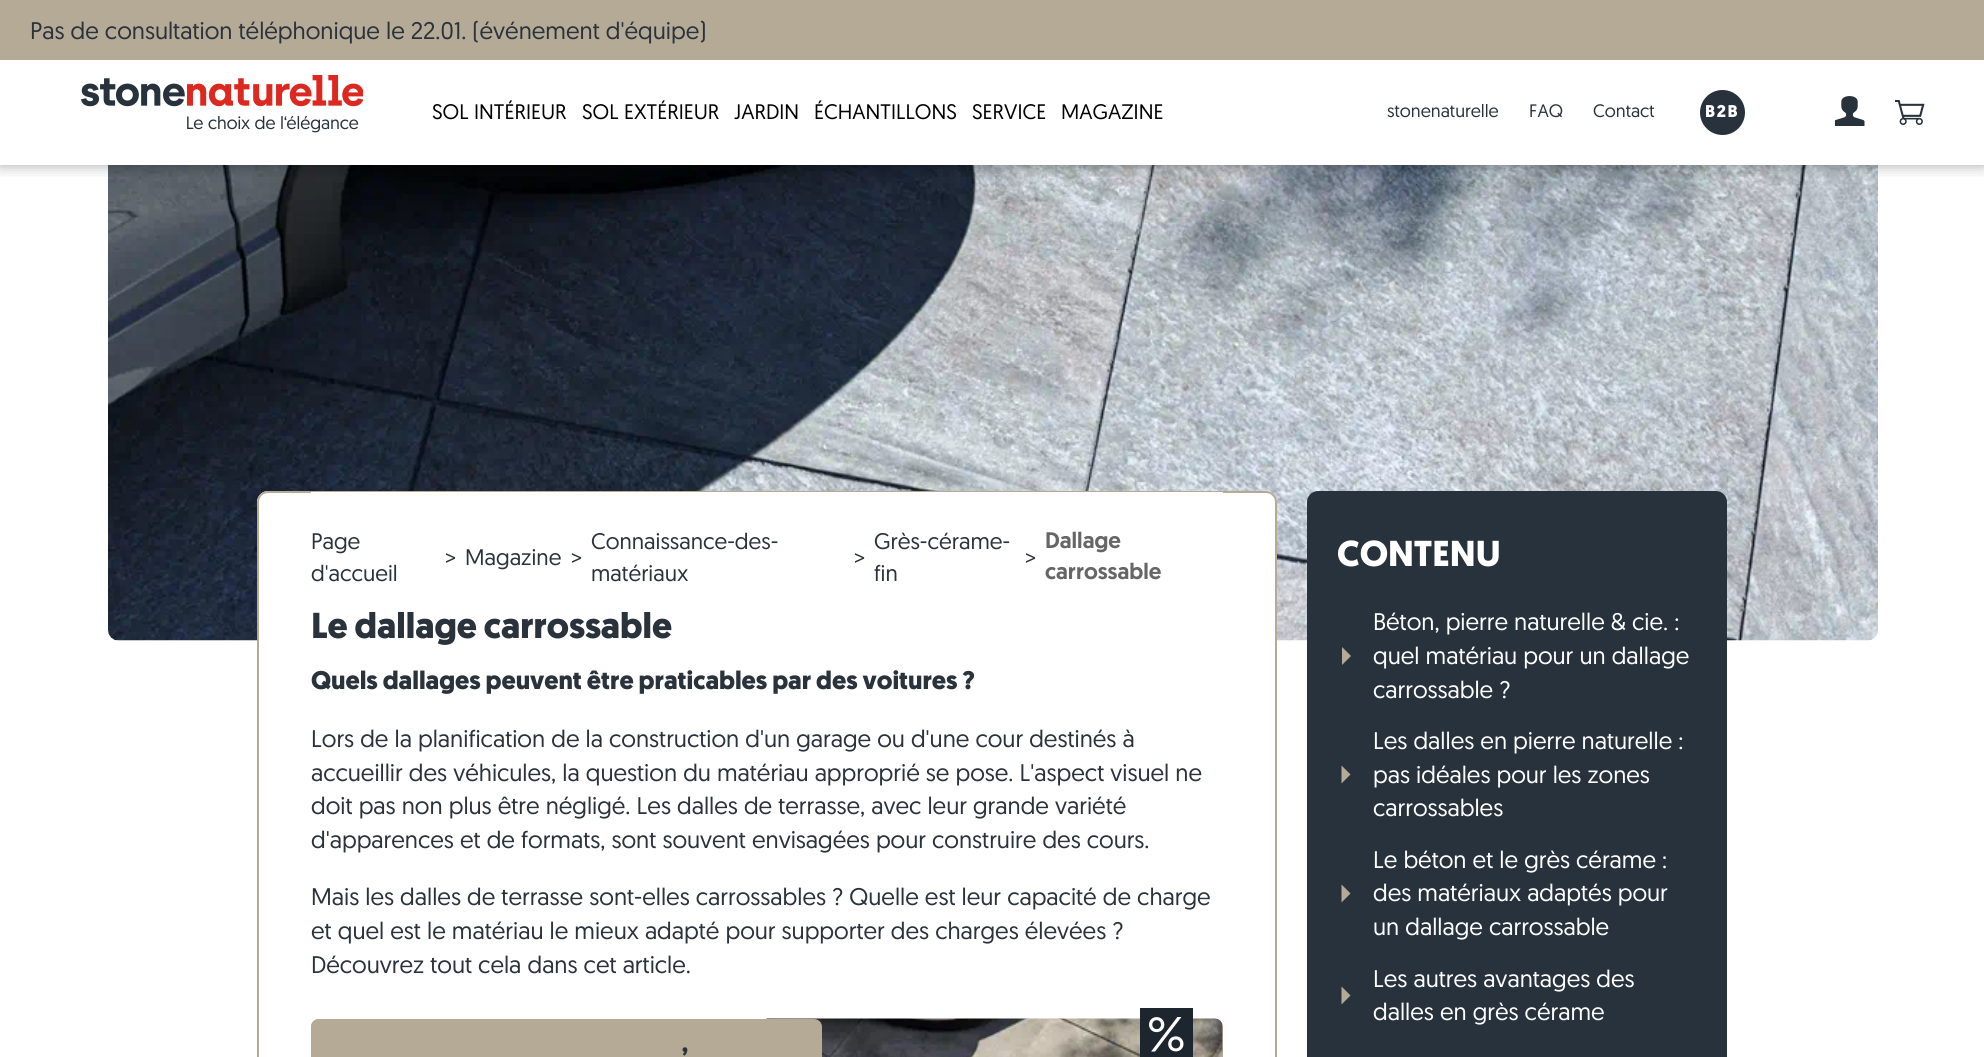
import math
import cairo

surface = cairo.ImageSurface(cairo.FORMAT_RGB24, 1984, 1057)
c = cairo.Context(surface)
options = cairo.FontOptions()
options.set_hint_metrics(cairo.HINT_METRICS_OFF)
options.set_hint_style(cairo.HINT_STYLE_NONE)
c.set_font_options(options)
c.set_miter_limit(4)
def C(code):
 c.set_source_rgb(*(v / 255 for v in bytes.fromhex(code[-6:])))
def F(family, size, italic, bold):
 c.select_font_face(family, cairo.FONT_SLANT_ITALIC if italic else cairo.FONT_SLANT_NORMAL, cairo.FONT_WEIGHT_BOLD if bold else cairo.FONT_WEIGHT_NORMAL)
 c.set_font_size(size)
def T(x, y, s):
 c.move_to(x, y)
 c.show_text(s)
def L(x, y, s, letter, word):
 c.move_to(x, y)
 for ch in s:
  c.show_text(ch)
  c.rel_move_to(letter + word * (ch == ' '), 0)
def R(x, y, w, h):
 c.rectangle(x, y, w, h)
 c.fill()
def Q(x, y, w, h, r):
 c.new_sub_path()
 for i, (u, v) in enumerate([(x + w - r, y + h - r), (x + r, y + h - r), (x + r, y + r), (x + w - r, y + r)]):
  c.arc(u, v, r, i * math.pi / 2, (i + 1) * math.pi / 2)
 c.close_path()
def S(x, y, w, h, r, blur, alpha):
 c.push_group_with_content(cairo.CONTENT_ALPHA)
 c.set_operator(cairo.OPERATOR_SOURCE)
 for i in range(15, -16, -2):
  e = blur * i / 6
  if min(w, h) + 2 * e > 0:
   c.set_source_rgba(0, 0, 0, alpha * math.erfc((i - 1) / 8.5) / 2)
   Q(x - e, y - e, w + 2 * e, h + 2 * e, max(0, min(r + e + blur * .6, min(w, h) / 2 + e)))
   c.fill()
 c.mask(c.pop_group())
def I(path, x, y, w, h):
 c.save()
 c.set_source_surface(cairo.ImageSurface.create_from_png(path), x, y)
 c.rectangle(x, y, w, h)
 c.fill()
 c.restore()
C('ffffff')
c.paint()
I('4.png',108,165,1770,476)
c.save()
c.rectangle(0,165,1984,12)
c.clip()
C('000000')
S(0,60,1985,105,0,7.5,.35)
c.restore()
C('b4aa96')
R(0,0,1984,60)
F('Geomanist',24,0,0)
C('2a323c')
T(30,39,'Pas de consultation téléphonique le 22.01. (événement d\'équipe)')
I('1.png',81,75,282,58)
F('Geomanist',21,0,0)
C('000000')
T(432,119,'SOL INTÉRIEUR')
T(582,119,'SOL EXTÉRIEUR')
T(734,119,'JARDIN')
T(814,119,'ÉCHANTILLONS')
T(972,119,'SERVICE')
T(1061,119,'MAGAZINE')
F('Geomanist',18,0,0)
C('2a323c')
T(1387,117,'stonenaturelle')
T(1529,117,'FAQ')
T(1593,117,'Contact')
C('28323c')
c.new_path()
c.arc(1722.5,112.5,22.5,0,2 * math.pi)
c.fill()
F('Geomanist',17,0,1)
C('ffffff')
L(1705,117,'B2B',1.5,0)
I('2.png',1835,96,30,30)
I('3.png',1895,100,30,25)
c.new_path()
c.move_to(268,491)
c.line_to(1266,491)
c.curve_to(1272,491,1277,496,1277,502)
c.line_to(1277,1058)
c.line_to(257,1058)
c.line_to(257,502)
c.curve_to(257,496,262,491,268,491)
c.close_path()
c.fill()
Q(258,492,1018,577,10)
C('b4aa96')
c.stroke()
C('ffffff')
R(311,492,912,1)
F('Geomanist',22.5,0,0)
C('2a323c')
T(311,549,'Page')
T(311,581,'d\'accueil')
T(445,565,'>')
T(465,565,'Magazine')
T(571,565,'>')
T(591,549,'Connaissance-des-')
T(591,581,'matériaux')
T(854,565,'>')
T(874,549,'Grès-cérame-')
T(874,581,'fin')
T(1025,565,'>')
F('Geomanist Medium',22.5,0,0)
C('666666')
T(1045,548,'Dallage')
T(1045,579,'carrossable')
F('Geomanist',36,0,1)
C('2a323c')
T(311,638,'Le dallage carrossable')
F('Geomanist',25.5,0,1)
T(311,689,'Quels dallages peuvent être praticables par des voitures ?')
F('Geomanist',24,0,0)
T(311,747,'Lors de la planification de la construction d\'un garage ou d\'une cour destinés à')
T(311,781,'accueillir des véhicules, la question du matériau approprié se pose. L\'aspect visuel ne')
T(311,814,'doit pas non plus être négligé. Les dalles de terrasse, avec leur grande variété')
T(311,848,'d\'apparences et de formats, sont souvent envisagées pour construire des cours.')
T(311,905,'Mais les dalles de terrasse sont-elles carrossables ? Quelle est leur capacité de charge')
T(311,939,'et quel est le matériau le mieux adapté pour supporter des charges élevées ?')
T(311,973,'Découvrez tout cela dans cet article.')
C('b4aa96')
c.new_path()
c.move_to(319,1019)
c.line_to(1215,1019)
c.curve_to(1219.5,1019,1223,1022.5,1223,1027)
c.line_to(1223,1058)
c.line_to(311,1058)
c.line_to(311,1027)
c.curve_to(311,1022.5,314.5,1019,319,1019)
c.close_path()
c.fill()
I('6.png',766,1018,457,39)
C('1d252f')
R(1140,1008,53,49)
I('5.png',1149,1017,35,35)
C('b4aa96')
c.new_path()
c.move_to(319,1019)
c.line_to(814,1019)
c.curve_to(818.5,1019,822,1022.5,822,1027)
c.line_to(822,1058)
c.line_to(311,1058)
c.line_to(311,1027)
c.curve_to(311,1022.5,314.5,1019,319,1019)
c.close_path()
c.fill()
F('Geomanist',24,0,1)
C('2a323c')
T(682,1065,'’')
C('28323c')
c.new_path()
c.move_to(1318,491)
c.line_to(1716,491)
c.curve_to(1722,491,1727,496,1727,502)
c.line_to(1727,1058)
c.line_to(1307,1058)
c.line_to(1307,502)
c.curve_to(1307,496,1312,491,1318,491)
c.close_path()
c.fill()
F('Geomanist',36,0,1)
C('ffffff')
T(1337,566,'CONTENU')
C('b4aa96')
c.new_path()
c.move_to(1342,665)
c.line_to(1351,656)
c.line_to(1342,647)
c.close_path()
c.fill()
F('Geomanist',24,0,0)
C('ffffff')
T(1373,630,'Béton, pierre naturelle & cie. :')
T(1373,664,'quel matériau pour un dallage')
T(1373,698,'carrossable ?')
C('b4aa96')
c.new_path()
c.move_to(1341.5,783.5)
c.line_to(1350.5,774.5)
c.line_to(1341.5,765.5)
c.close_path()
c.fill()
C('ffffff')
T(1373,749,'Les dalles en pierre naturelle :')
T(1373,783,'pas idéales pour les zones')
T(1373,816,'carrossables')
C('b4aa96')
c.new_path()
c.move_to(1341.5,902.5)
c.line_to(1350.5,893.5)
c.line_to(1341.5,884.5)
c.close_path()
c.fill()
C('ffffff')
T(1373,868,'Le béton et le grès cérame :')
T(1373,901,'des matériaux adaptés pour')
T(1373,935,'un dallage carrossable')
C('b4aa96')
c.new_path()
c.move_to(1341.5,1004.5)
c.line_to(1350.5,995.5)
c.line_to(1341.5,986.5)
c.close_path()
c.fill()
C('ffffff')
T(1373,987,'Les autres avantages des')
T(1373,1020,'dalles en grès cérame')
surface.write_to_png('o.png')
